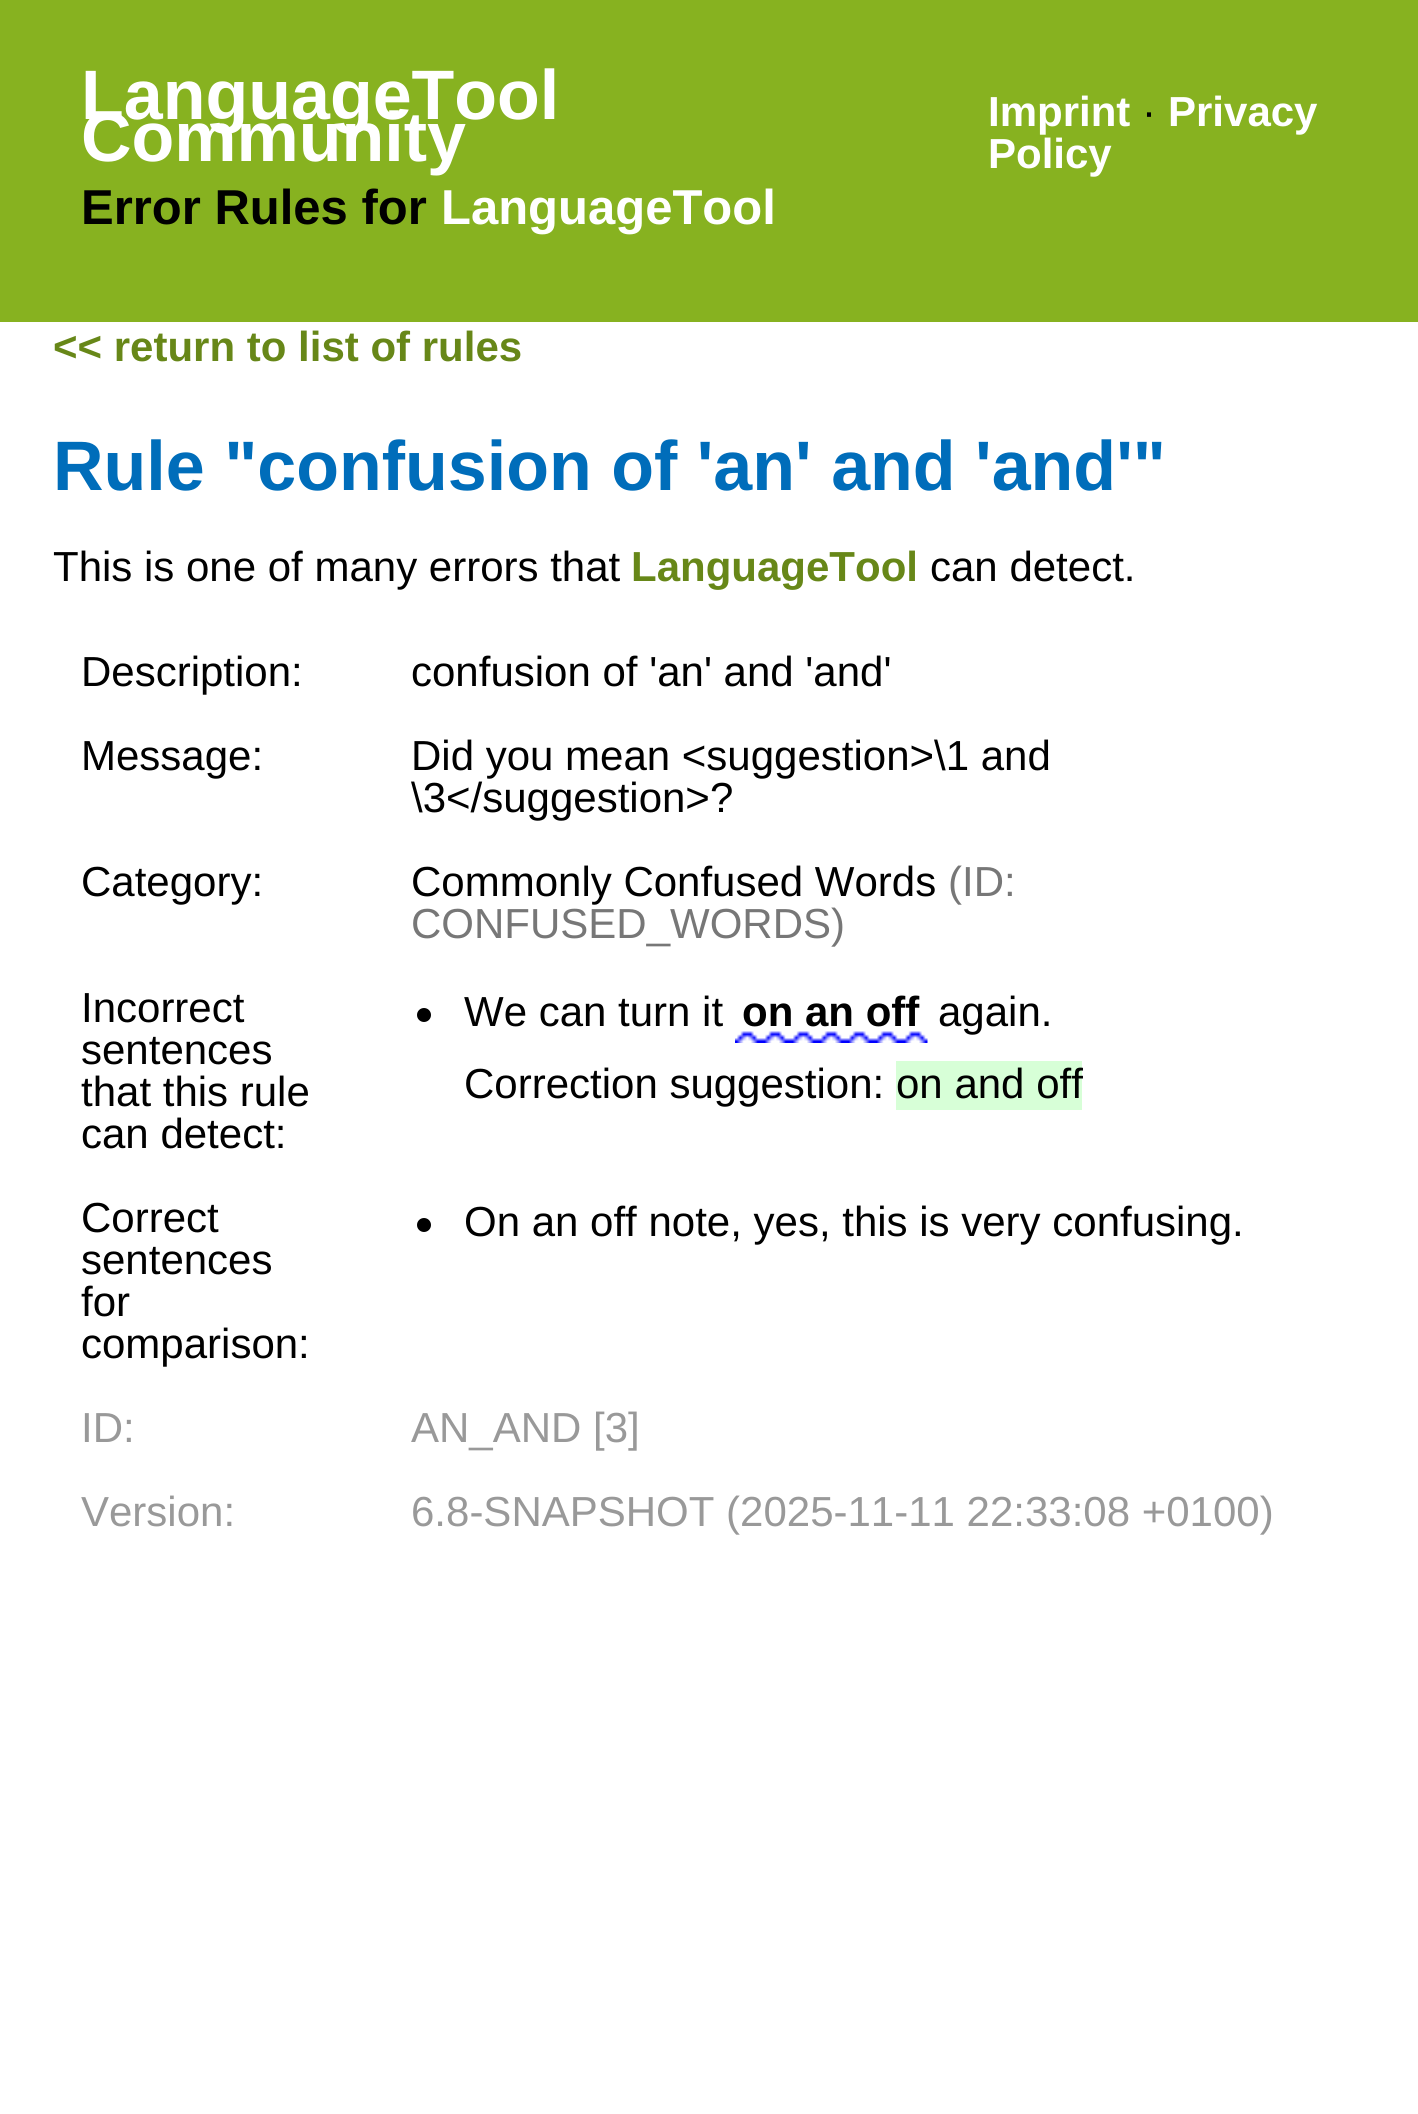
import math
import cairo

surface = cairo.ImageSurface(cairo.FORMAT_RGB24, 1418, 2114)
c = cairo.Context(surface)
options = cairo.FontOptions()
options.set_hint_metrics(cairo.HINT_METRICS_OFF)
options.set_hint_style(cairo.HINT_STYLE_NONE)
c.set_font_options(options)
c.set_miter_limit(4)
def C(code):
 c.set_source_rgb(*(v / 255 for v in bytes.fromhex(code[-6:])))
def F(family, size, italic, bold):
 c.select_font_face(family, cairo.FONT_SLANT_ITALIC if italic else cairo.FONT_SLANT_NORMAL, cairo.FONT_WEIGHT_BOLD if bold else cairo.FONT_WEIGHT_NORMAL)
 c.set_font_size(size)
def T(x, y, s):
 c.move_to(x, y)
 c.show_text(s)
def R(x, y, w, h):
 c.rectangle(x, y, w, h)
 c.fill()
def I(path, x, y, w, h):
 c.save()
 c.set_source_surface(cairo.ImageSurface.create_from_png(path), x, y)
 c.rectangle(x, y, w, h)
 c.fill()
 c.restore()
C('ffffff')
c.paint()
C('87b220')
R(0,0,1418,322)
F('Liberation Sans',70,0,1)
C('ffffff')
T(81,119,'LanguageTool')
T(81,161,'Community')
F('Liberation Sans',49,0,1)
C('000000')
T(81,224,'Error Rules for')
C('ffffff')
T(441,224,'LanguageTool')
F('Liberation Sans',42,0,1)
T(988,126,'Imprint')
F('Liberation Sans',42,0,0)
C('000000')
T(1142,126,'·')
F('Liberation Sans',42,0,1)
C('ffffff')
T(1168,126,'Privacy')
T(988,168,'Policy')
C('678718')
T(53,361,'<< return to list of rules')
F('Liberation Sans',70,0,1)
C('006dba')
T(53,490,'Rule "confusion of \'an\' and \'and\'"')
F('Liberation Sans',42,0,0)
C('000000')
T(53,581,'This is one of many errors that')
F('Liberation Sans',42,0,1)
C('678718')
T(631,581,'LanguageTool')
F('Liberation Sans',42,0,0)
C('000000')
T(930,581,'can detect.')
T(81,686,'Description:')
T(411,686,'confusion of \'an\' and \'and\'')
T(81,770,'Message:')
T(411,770,'Did you mean <suggestion>\\1 and')
T(411,812,'\\3</suggestion>?')
T(81,896,'Category:')
T(411,896,'Commonly Confused Words')
C('777777')
T(948,896,'(ID:')
T(411,938,'CONFUSED_WORDS)')
C('000000')
T(81,1022,'Incorrect')
T(81,1064,'sentences')
T(81,1106,'that this rule')
T(81,1148,'can detect:')
c.new_path()
c.arc(424,1015,7,0,2 * math.pi)
c.fill()
T(464,1026,'We can turn it')
F('Liberation Sans',42,0,1)
T(742,1026,'on an off')
F('Liberation Sans',42,0,0)
T(938,1026,'again.')
I('1.png',735,1031,193,12)
T(464,1098,'Correction suggestion:')
C('d7ffd7')
R(896,1061,186,49)
C('000000')
T(896,1098,'on and off')
T(81,1232,'Correct')
T(81,1274,'sentences')
T(81,1316,'for')
T(81,1358,'comparison:')
c.new_path()
c.arc(424,1225,7,0,2 * math.pi)
c.fill()
T(464,1236,'On an off note, yes, this is very confusing.')
C('999999')
T(81,1442,'ID:')
T(411,1442,'AN_AND [3]')
T(81,1526,'Version:')
T(411,1526,'6.8-SNAPSHOT (2025-11-11 22:33:08 +0100)')
surface.write_to_png('o.png')
